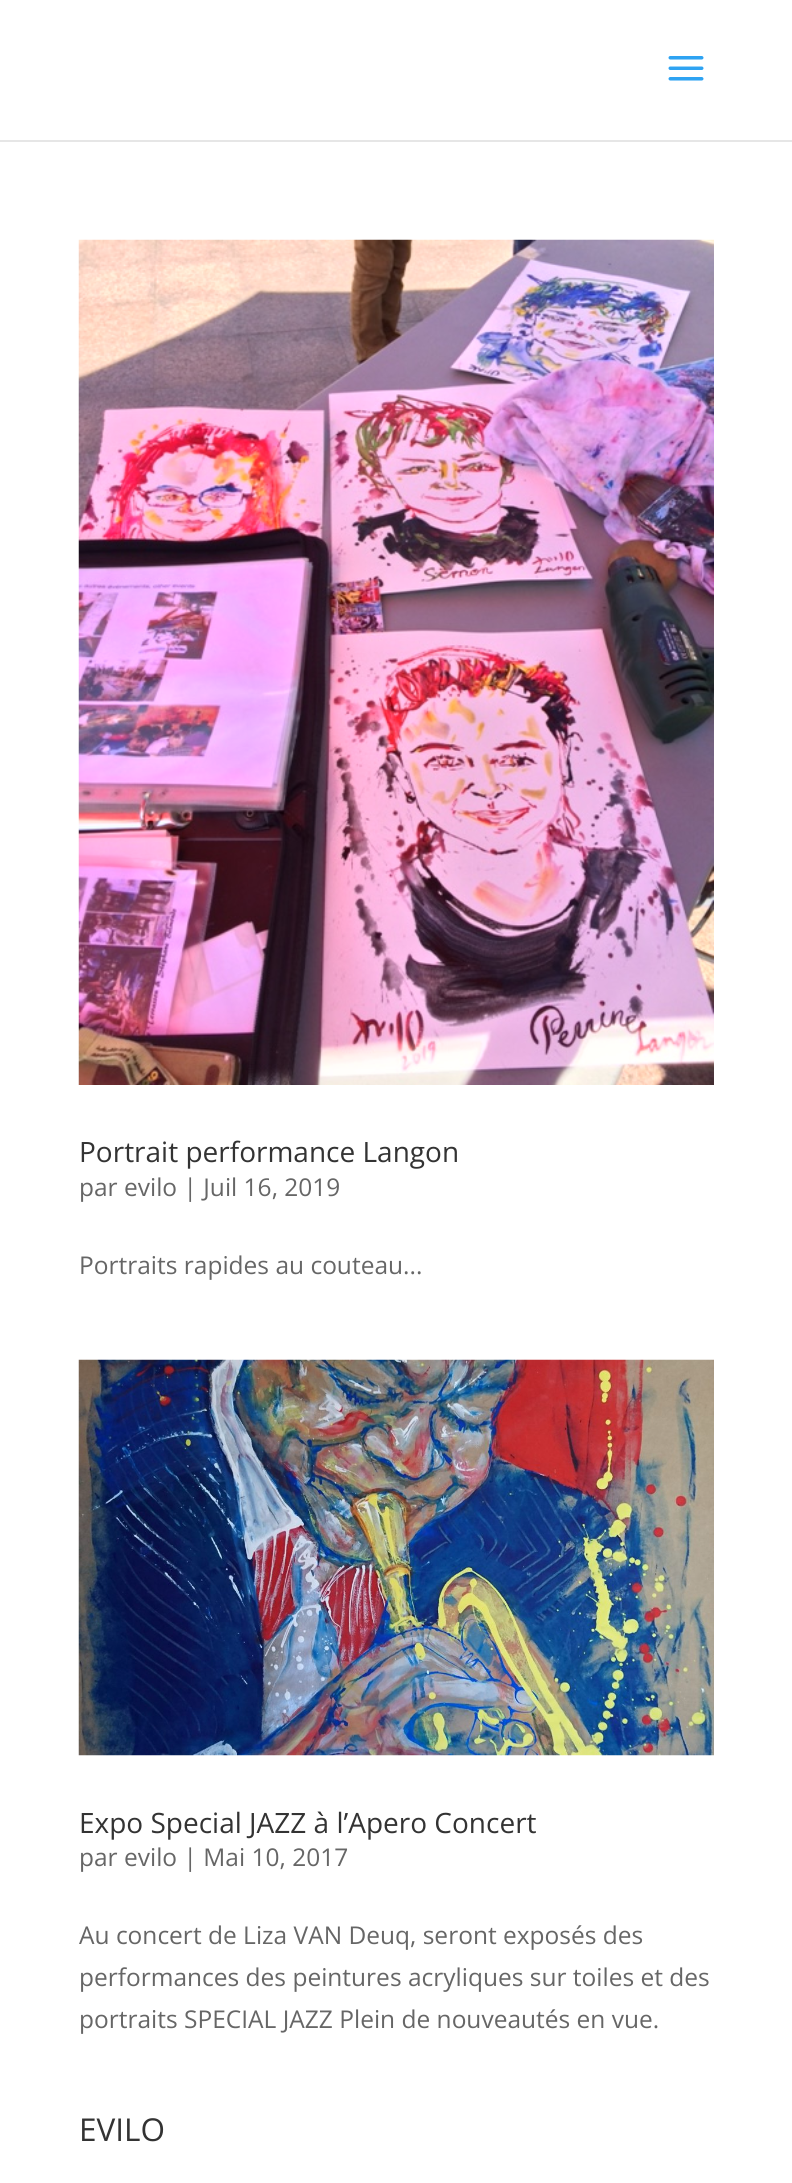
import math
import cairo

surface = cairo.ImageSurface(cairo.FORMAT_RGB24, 792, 2183)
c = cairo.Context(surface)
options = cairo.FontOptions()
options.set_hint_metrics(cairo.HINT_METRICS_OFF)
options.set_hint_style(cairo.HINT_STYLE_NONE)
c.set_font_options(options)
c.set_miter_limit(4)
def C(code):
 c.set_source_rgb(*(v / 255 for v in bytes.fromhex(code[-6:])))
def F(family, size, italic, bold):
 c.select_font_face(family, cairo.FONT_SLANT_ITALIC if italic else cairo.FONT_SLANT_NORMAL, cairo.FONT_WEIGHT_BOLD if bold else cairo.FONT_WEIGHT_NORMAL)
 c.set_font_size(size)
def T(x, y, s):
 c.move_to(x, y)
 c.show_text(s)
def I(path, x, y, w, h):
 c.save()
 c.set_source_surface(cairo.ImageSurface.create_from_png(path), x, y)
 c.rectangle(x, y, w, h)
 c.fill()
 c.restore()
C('ffffff')
c.paint()
C('e6e6e6')
c.new_path()
c.move_to(0,140)
c.line_to(0,142)
c.line_to(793,142)
c.line_to(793,2)
c.line_to(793,140)
c.close_path()
c.fill()
I('1.png',668,56,36,25)
I('2.png',78,239,636,846)
F('Open Sans',28,0,0)
C('333333')
T(79,1162,'Portrait performance Langon')
F('Open Sans',24.5,0,0)
C('666666')
T(79,1196,'par evilo | Juil 16, 2019')
T(79,1274,'Portraits rapides au couteau...')
I('3.png',78,1359,636,397)
F('Open Sans',28,0,0)
C('333333')
T(79,1833,'Expo Special JAZZ à l’Apero Concert')
F('Open Sans',24.5,0,0)
C('666666')
T(79,1866,'par evilo | Mai 10, 2017')
T(79,1944,'Au concert de Liza VAN Deuq, seront exposés des')
T(79,1986,'performances des peintures acryliques sur toiles et des')
T(79,2028,'portraits SPECIAL JAZZ Plein de nouveautés en vue.')
F('Open Sans',31.5,0,0)
C('333333')
T(79,2141,'EVILO')
surface.write_to_png('o.png')
